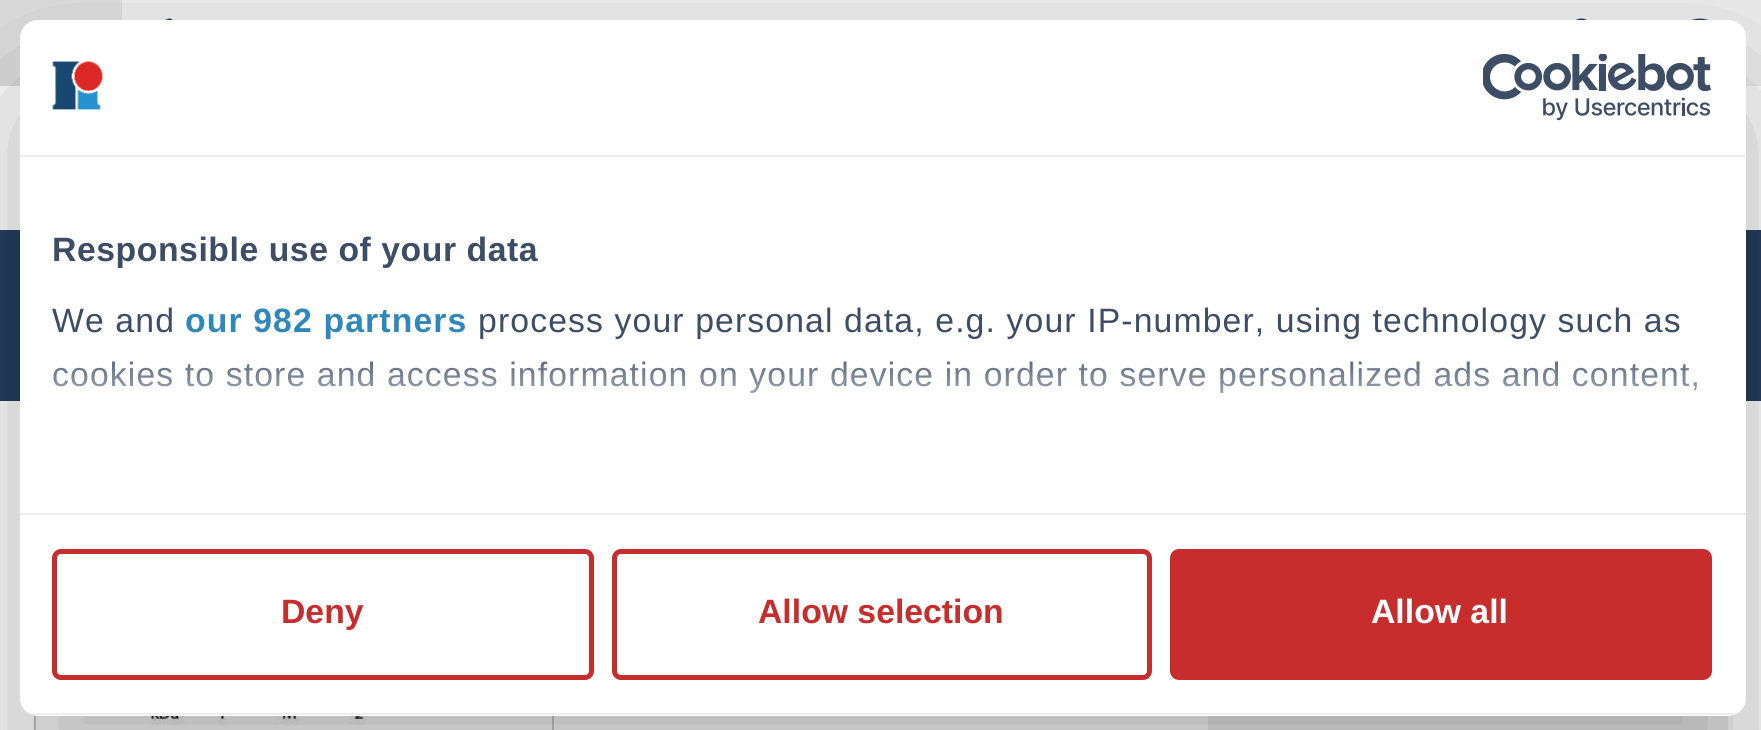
import math
import cairo

surface = cairo.ImageSurface(cairo.FORMAT_RGB24, 1761, 730)
c = cairo.Context(surface)
options = cairo.FontOptions()
options.set_hint_metrics(cairo.HINT_METRICS_OFF)
options.set_hint_style(cairo.HINT_STYLE_NONE)
c.set_font_options(options)
c.set_miter_limit(4)
def C(code):
 c.set_source_rgb(*(v / 255 for v in bytes.fromhex(code[-6:])))
def F(family, size, italic, bold):
 c.select_font_face(family, cairo.FONT_SLANT_ITALIC if italic else cairo.FONT_SLANT_NORMAL, cairo.FONT_WEIGHT_BOLD if bold else cairo.FONT_WEIGHT_NORMAL)
 c.set_font_size(size)
def T(x, y, s):
 c.move_to(x, y)
 c.show_text(s)
def L(x, y, s, letter, word):
 c.move_to(x, y)
 for ch in s:
  c.show_text(ch)
  c.rel_move_to(letter + word * (ch == ' '), 0)
def R(x, y, w, h):
 c.rectangle(x, y, w, h)
 c.fill()
def Q(x, y, w, h, r):
 c.new_sub_path()
 for i, (u, v) in enumerate([(x + w - r, y + h - r), (x + r, y + h - r), (x + r, y + r), (x + w - r, y + r)]):
  c.arc(u, v, r, i * math.pi / 2, (i + 1) * math.pi / 2)
 c.close_path()
def S(x, y, w, h, r, blur, alpha):
 c.push_group_with_content(cairo.CONTENT_ALPHA)
 c.set_operator(cairo.OPERATOR_SOURCE)
 for i in range(15, -16, -2):
  e = blur * i / 6
  if min(w, h) + 2 * e > 0:
   c.set_source_rgba(0, 0, 0, alpha * math.erfc((i - 1) / 8.5) / 2)
   Q(x - e, y - e, w + 2 * e, h + 2 * e, max(0, min(r + e + blur * .6, min(w, h) / 2 + e)))
   c.fill()
 c.mask(c.pop_group())
def I(path, x, y, w, h):
 c.save()
 c.set_source_surface(cairo.ImageSurface.create_from_png(path), x, y)
 c.rectangle(x, y, w, h)
 c.fill()
 c.restore()
C('ffffff')
c.paint()
C('eeeeee')
R(122,0,1639,86)
C('dedede')
R(0,0,122,86)
I('1.png',165,18,8,2)
I('2.png',1576,18,11,2)
I('3.png',1692,18,16,2)
C('243f5f')
R(0,230,1761,171)
c.rectangle(35,548,518,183)
C('cdcdcd')
c.stroke()
I('6.png',151,716,215,10)
C('eeeeee')
R(1208,716,520,14)
C('000000')
S(20,92,1726,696,18,76.5,.3)
C('ffffff')
Q(20,20,1726,696,18)
c.fill()
C('eeeeee')
R(20,155,1726,2)
I('4.png',52,61,51,49)
I('5.png',1483,54,228,67)
R(20,513,1726,2)
F('Liberation Sans',33.75,0,1)
C('3d4d65')
L(52,261,'Responsible use of your data',.55,0)
F('Liberation Sans',33.75,0,0)
L(52,332,'We and',1.12,0)
F('Liberation Sans',33.75,0,1)
C('3087bc')
L(185,332,'our 982 partners',1.12,0)
F('Liberation Sans',33.75,0,0)
C('3d4d65')
L(478,332,'process your personal data, e.g. your IP-number, using technology such as',1.12,0)
L(52,386,'cookies to store and access information on your device in order to serve personalized ads and content,',1.12,0)
gradient = cairo.LinearGradient(867,512,867,343)
gradient.add_color_stop_rgba(0,1,1,1,1)
gradient.add_color_stop_rgba(.5,1,1,1,.8)
gradient.add_color_stop_rgba(1,1,1,1,0)
c.set_source(gradient)
R(53,361,1644,32)
c.save()
Q(20,20,1726,696,18)
c.clip()
C('eeeeee')
R(20,713,1726,2)
c.restore()
Q(54.5,551.5,537,126,6.5)
C('c72d2c')
c.set_line_width(5)
c.stroke()
F('Liberation Sans',33.75,0,1)
T(281,623,'Deny')
Q(614.5,551.5,535,126,6.5)
c.stroke()
T(758,623,'Allow selection')
Q(1172.5,551.5,537,126,6.5)
c.fill_preserve()
c.stroke()
C('ffffff')
T(1371,623,'Allow all')
surface.write_to_png('o.png')
